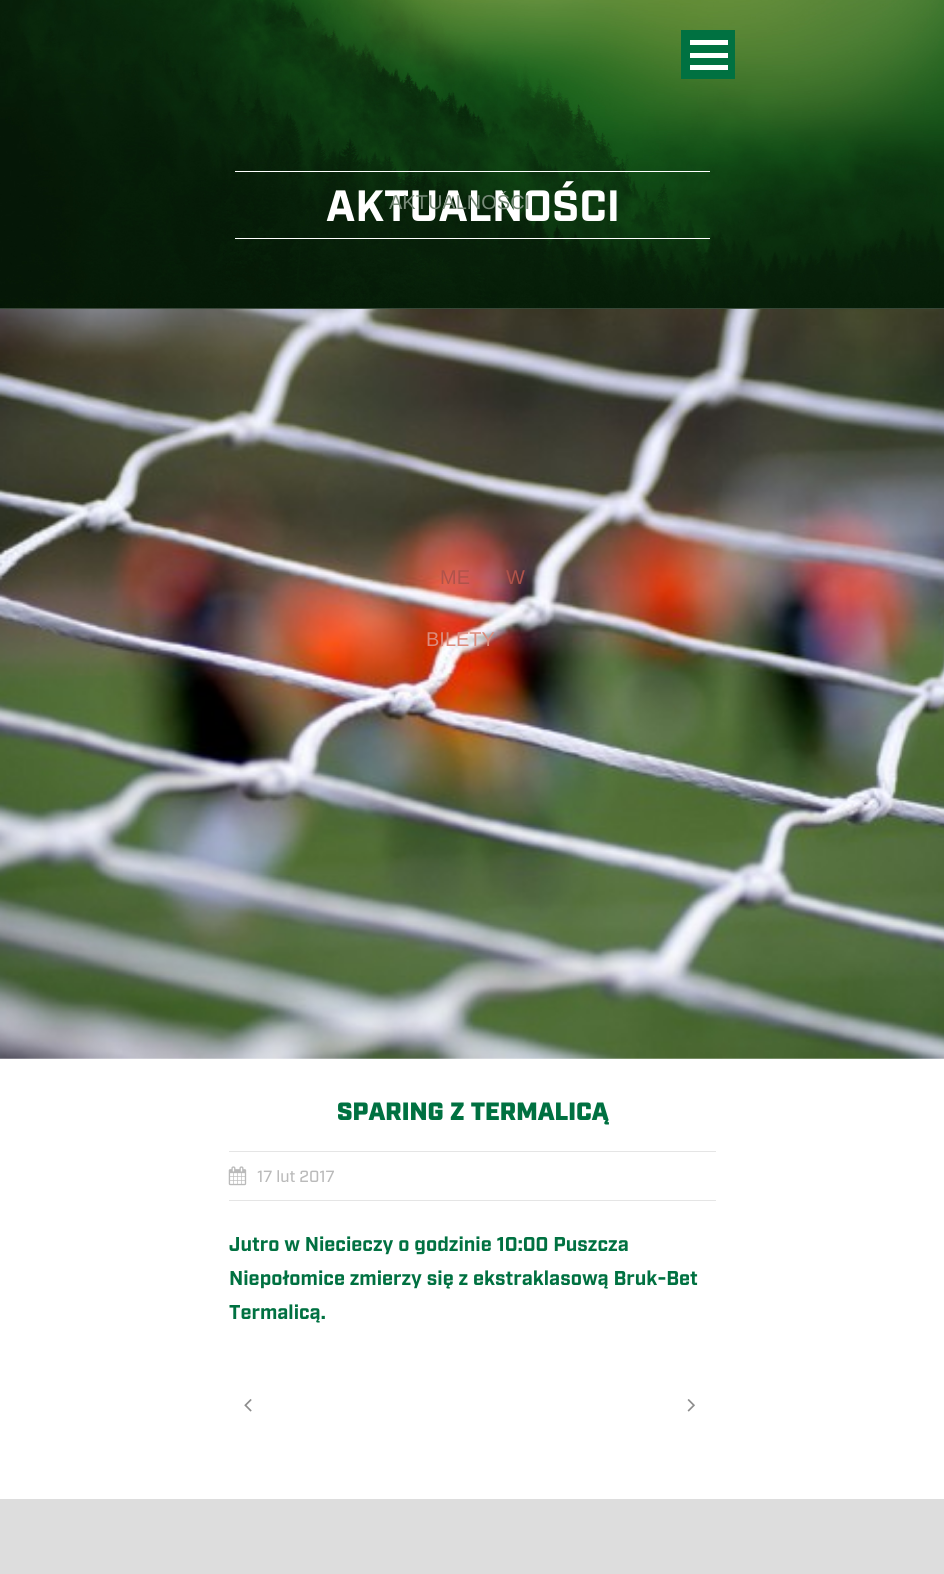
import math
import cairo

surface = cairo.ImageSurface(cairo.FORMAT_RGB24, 944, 1574)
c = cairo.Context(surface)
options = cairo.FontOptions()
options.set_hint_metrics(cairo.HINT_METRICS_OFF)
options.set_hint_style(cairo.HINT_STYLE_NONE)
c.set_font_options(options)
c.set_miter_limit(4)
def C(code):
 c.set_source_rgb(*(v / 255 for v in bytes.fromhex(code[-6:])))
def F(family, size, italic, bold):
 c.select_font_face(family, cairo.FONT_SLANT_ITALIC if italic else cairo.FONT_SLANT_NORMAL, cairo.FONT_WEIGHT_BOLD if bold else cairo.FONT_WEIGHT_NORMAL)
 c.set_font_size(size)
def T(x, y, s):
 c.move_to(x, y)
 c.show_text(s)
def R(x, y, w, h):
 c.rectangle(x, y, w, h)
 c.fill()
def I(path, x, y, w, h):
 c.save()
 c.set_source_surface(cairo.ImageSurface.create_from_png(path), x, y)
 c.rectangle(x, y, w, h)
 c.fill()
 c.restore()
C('dddddd')
c.paint()
C('ffffff')
R(0,308,944,1191)
I('2.png',0,308,944,751)
I('1.png',0,0,944,309)
R(235,171,475,1)
F('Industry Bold',43.75,0,1)
T(326,221,'AKTUALNOŚCI')
R(235,238,475,1)
C('007141')
R(681,30,54,49)
C('ffffff')
R(690,65,38,5)
R(690,53,38,5)
R(690,40,38,5)
F('Liberation Sans',20,0,0)
C('798b7a')
T(389,209,'AKTUALNOŚCI')
C('af534a')
T(440,584,'ME')
T(506,584,'W')
C('db8b7c')
T(426,646,'BILETY')
F('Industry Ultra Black',25,0,0)
C('007141')
T(337,1120,'SPARING Z TERMALICĄ')
C('e5e5e5')
R(229,1151,487,1)
R(229,1200,487,1)
I('3.png',228,1166,19,20)
F('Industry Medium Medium',16.25,0,0)
C('bababa')
T(257,1182,'17 lut 2017')
F('Industry Bold',20,0,1)
C('007141')
T(229,1251,'Jutro w Niecieczy o godzinie 10:00 Puszcza')
T(229,1285,'Niepołomice zmierzy się z ekstraklasową Bruk-Bet')
T(229,1319,'Termalicą.')
I('4.png',244,1399,8,13)
I('5.png',687,1399,8,13)
surface.write_to_png('o.png')
